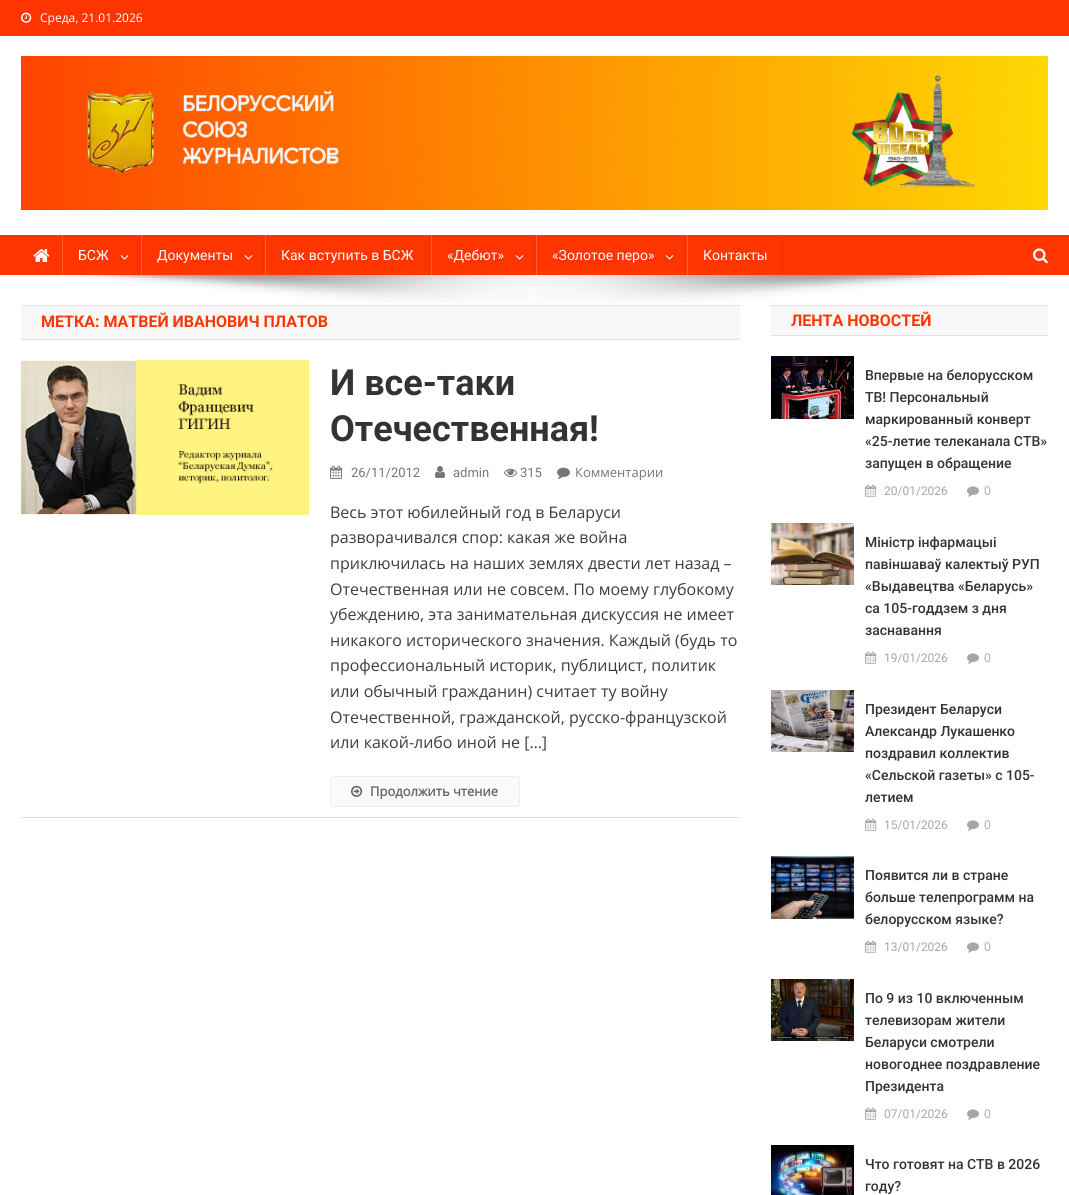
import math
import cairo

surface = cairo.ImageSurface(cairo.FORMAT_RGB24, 1069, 1195)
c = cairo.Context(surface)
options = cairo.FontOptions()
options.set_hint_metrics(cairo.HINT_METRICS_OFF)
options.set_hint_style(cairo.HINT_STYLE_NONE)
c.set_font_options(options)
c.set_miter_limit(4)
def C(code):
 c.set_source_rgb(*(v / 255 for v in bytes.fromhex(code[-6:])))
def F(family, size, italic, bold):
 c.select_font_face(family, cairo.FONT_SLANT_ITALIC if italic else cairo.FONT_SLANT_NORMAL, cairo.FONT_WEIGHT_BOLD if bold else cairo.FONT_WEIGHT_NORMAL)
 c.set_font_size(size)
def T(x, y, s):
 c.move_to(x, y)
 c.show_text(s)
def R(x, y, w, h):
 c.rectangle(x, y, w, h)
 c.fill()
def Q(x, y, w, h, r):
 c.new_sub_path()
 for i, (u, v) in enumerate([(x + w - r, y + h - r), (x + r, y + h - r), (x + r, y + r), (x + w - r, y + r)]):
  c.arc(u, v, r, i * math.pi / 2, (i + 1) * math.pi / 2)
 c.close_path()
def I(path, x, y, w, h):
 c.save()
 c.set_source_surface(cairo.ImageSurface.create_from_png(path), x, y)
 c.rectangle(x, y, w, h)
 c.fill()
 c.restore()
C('ffffff')
c.paint()
C('fe3500')
R(0,0,1069,36)
I('1.png',21,12,11,11)
F('Open Sans',12,0,0)
C('ffffff')
T(40,22,'Среда, 21.01.2026')
I('2.png',21,56,1027,154)
C('fe3500')
R(0,235,1069,40)
I('3.png',33,249,17,13)
C('ea3100')
R(139,235,1,40)
C('fe5d33')
R(62,235,1,40)
F('Roboto',14,0,0)
C('ffffff')
T(78,260,'БСЖ')
I('4.png',120,255,9,5)
C('ea3100')
R(263,235,1,40)
C('fe5d33')
R(141,235,1,40)
C('ffffff')
T(157,260,'Документы')
I('4.png',244,255,9,5)
C('ea3100')
R(429,235,1,40)
C('fe5d33')
R(265,235,1,40)
C('ffffff')
T(281,260,'Как вступить в БСЖ')
C('ea3100')
R(534,235,1,40)
C('fe5d33')
R(431,235,1,40)
C('ffffff')
T(447,260,'«Дебют»')
I('4.png',515,255,9,5)
C('ea3100')
R(684,235,1,40)
C('fe5d33')
R(536,235,1,40)
C('ffffff')
T(552,260,'«Золотое перо»')
I('4.png',665,255,9,5)
C('ea3100')
R(782,235,1,40)
C('fe5d33')
R(687,235,1,40)
C('ffffff')
T(703,260,'Контакты')
I('5.png',1033,248,15,16)
I('6.png',72,275,925,28)
C('f7f7f7')
R(21,306,719,33)
C('e1e1e1')
R(21,305,719,1)
R(21,339,719,1)
F('Roboto',16,0,1)
C('fe3500')
T(41,327,'МЕТКА: МАТВЕЙ ИВАНОВИЧ ПЛАТОВ')
I('7.png',21,360,288,155)
F('Roboto',36,0,1)
C('333333')
T(330,395,'И все-таки')
T(330,441,'Отечественная!')
I('8.png',330,465,13,14)
F('Roboto',13,0,0)
C('767676')
T(351,477,'26/11/2012')
I('9.png',435,466,10,12)
T(453,477,'admin')
I('10.png',504,468,13,9)
T(520,477,'315')
I('11.png',557,467,13,12)
F('Open Sans',13,0,0)
T(575,477,'Комментарии')
F('Open Sans',16,0,0)
C('3d3d3d')
T(330,518,'Весь этот юбилейный год в Беларуси')
T(330,543,'разворачивался спор: какая же война')
T(330,569,'приключилась на наших землях двести лет назад –')
T(330,595,'Отечественная или не совсем. По моему глубокому')
T(330,620,'убеждению, эта занимательная дискуссия не имеет')
T(330,646,'никакого исторического значения. Каждый (будь то')
T(330,671,'профессиональный историк, публицист, политик')
T(330,697,'или обычный гражданин) считает ту войну')
T(330,723,'Отечественной, гражданской, русско-французской')
T(330,748,'или какой-либо иной не […]')
C('fafafa')
Q(330.5,776.5,189,30,2.5)
c.fill_preserve()
C('eeeeee')
c.set_line_width(1)
c.stroke()
I('12.png',351,785,12,12)
F('Open Sans',13,0,1)
C('666666')
T(370,796,'Продолжить чтение')
C('e1e1e1')
R(21,817,719,1)
C('f7f7f7')
R(771,306,277,29)
C('e1e1e1')
R(771,305,277,1)
R(771,335,277,1)
F('Roboto',16,0,1)
C('fe3500')
T(791,326,'ЛЕНТА НОВОСТЕЙ')
I('13.png',771,356,83,63)
F('Roboto Medium',14,0,0)
C('333333')
T(865,380,'Впервые на белорусском')
T(865,402,'ТВ! Персональный')
T(865,424,'маркированный конверт')
T(865,446,'«25-летие телеканала СТВ»')
T(865,468,'запущен в обращение')
I('14.png',865,484,12,13)
F('Roboto',12,0,0)
C('a6a6a6')
T(884,495,'20/01/2026')
I('15.png',967,486,12,11)
F('Open Sans',12,0,0)
T(984,495,'0')
I('16.png',771,523,83,62)
F('Roboto Medium',14,0,0)
C('333333')
T(865,547,'Міністр інфармацыі')
T(865,569,'павіншаваў калектыў РУП')
T(865,591,'«Выдавецтва «Беларусь»')
T(865,613,'са 105-годдзем з дня')
T(865,635,'заснавання')
I('14.png',865,651,12,13)
F('Roboto',12,0,0)
C('a6a6a6')
T(884,662,'19/01/2026')
I('15.png',967,653,12,11)
F('Open Sans',12,0,0)
T(984,662,'0')
I('17.png',771,690,83,62)
F('Roboto Medium',14,0,0)
C('333333')
T(865,714,'Президент Беларуси')
T(865,736,'Александр Лукашенко')
T(865,758,'поздравил коллектив')
T(865,780,'«Сельской газеты» с 105-')
T(865,802,'летием')
I('14.png',865,818,12,13)
F('Roboto',12,0,0)
C('a6a6a6')
T(884,829,'15/01/2026')
I('15.png',967,820,12,11)
F('Open Sans',12,0,0)
T(984,829,'0')
I('18.png',771,856,83,63)
F('Roboto Medium',14,0,0)
C('333333')
T(865,880,'Появится ли в стране')
T(865,902,'больше телепрограмм на')
T(865,924,'белорусском языке?')
I('14.png',865,940,12,13)
F('Roboto',12,0,0)
C('a6a6a6')
T(884,951,'13/01/2026')
I('15.png',967,942,12,11)
F('Open Sans',12,0,0)
T(984,951,'0')
I('19.png',771,979,83,62)
F('Roboto Medium',14,0,0)
C('333333')
T(865,1003,'По 9 из 10 включенным')
T(865,1025,'телевизорам жители')
T(865,1047,'Беларуси смотрели')
T(865,1069,'новогоднее поздравление')
T(865,1091,'Президента')
I('14.png',865,1107,12,13)
F('Roboto',12,0,0)
C('a6a6a6')
T(884,1118,'07/01/2026')
I('15.png',967,1109,12,11)
F('Open Sans',12,0,0)
T(984,1118,'0')
I('20.png',771,1145,83,50)
F('Roboto Medium',14,0,0)
C('333333')
T(865,1169,'Что готовят на СТВ в 2026')
T(865,1191,'году?')
surface.write_to_png('o.png')
